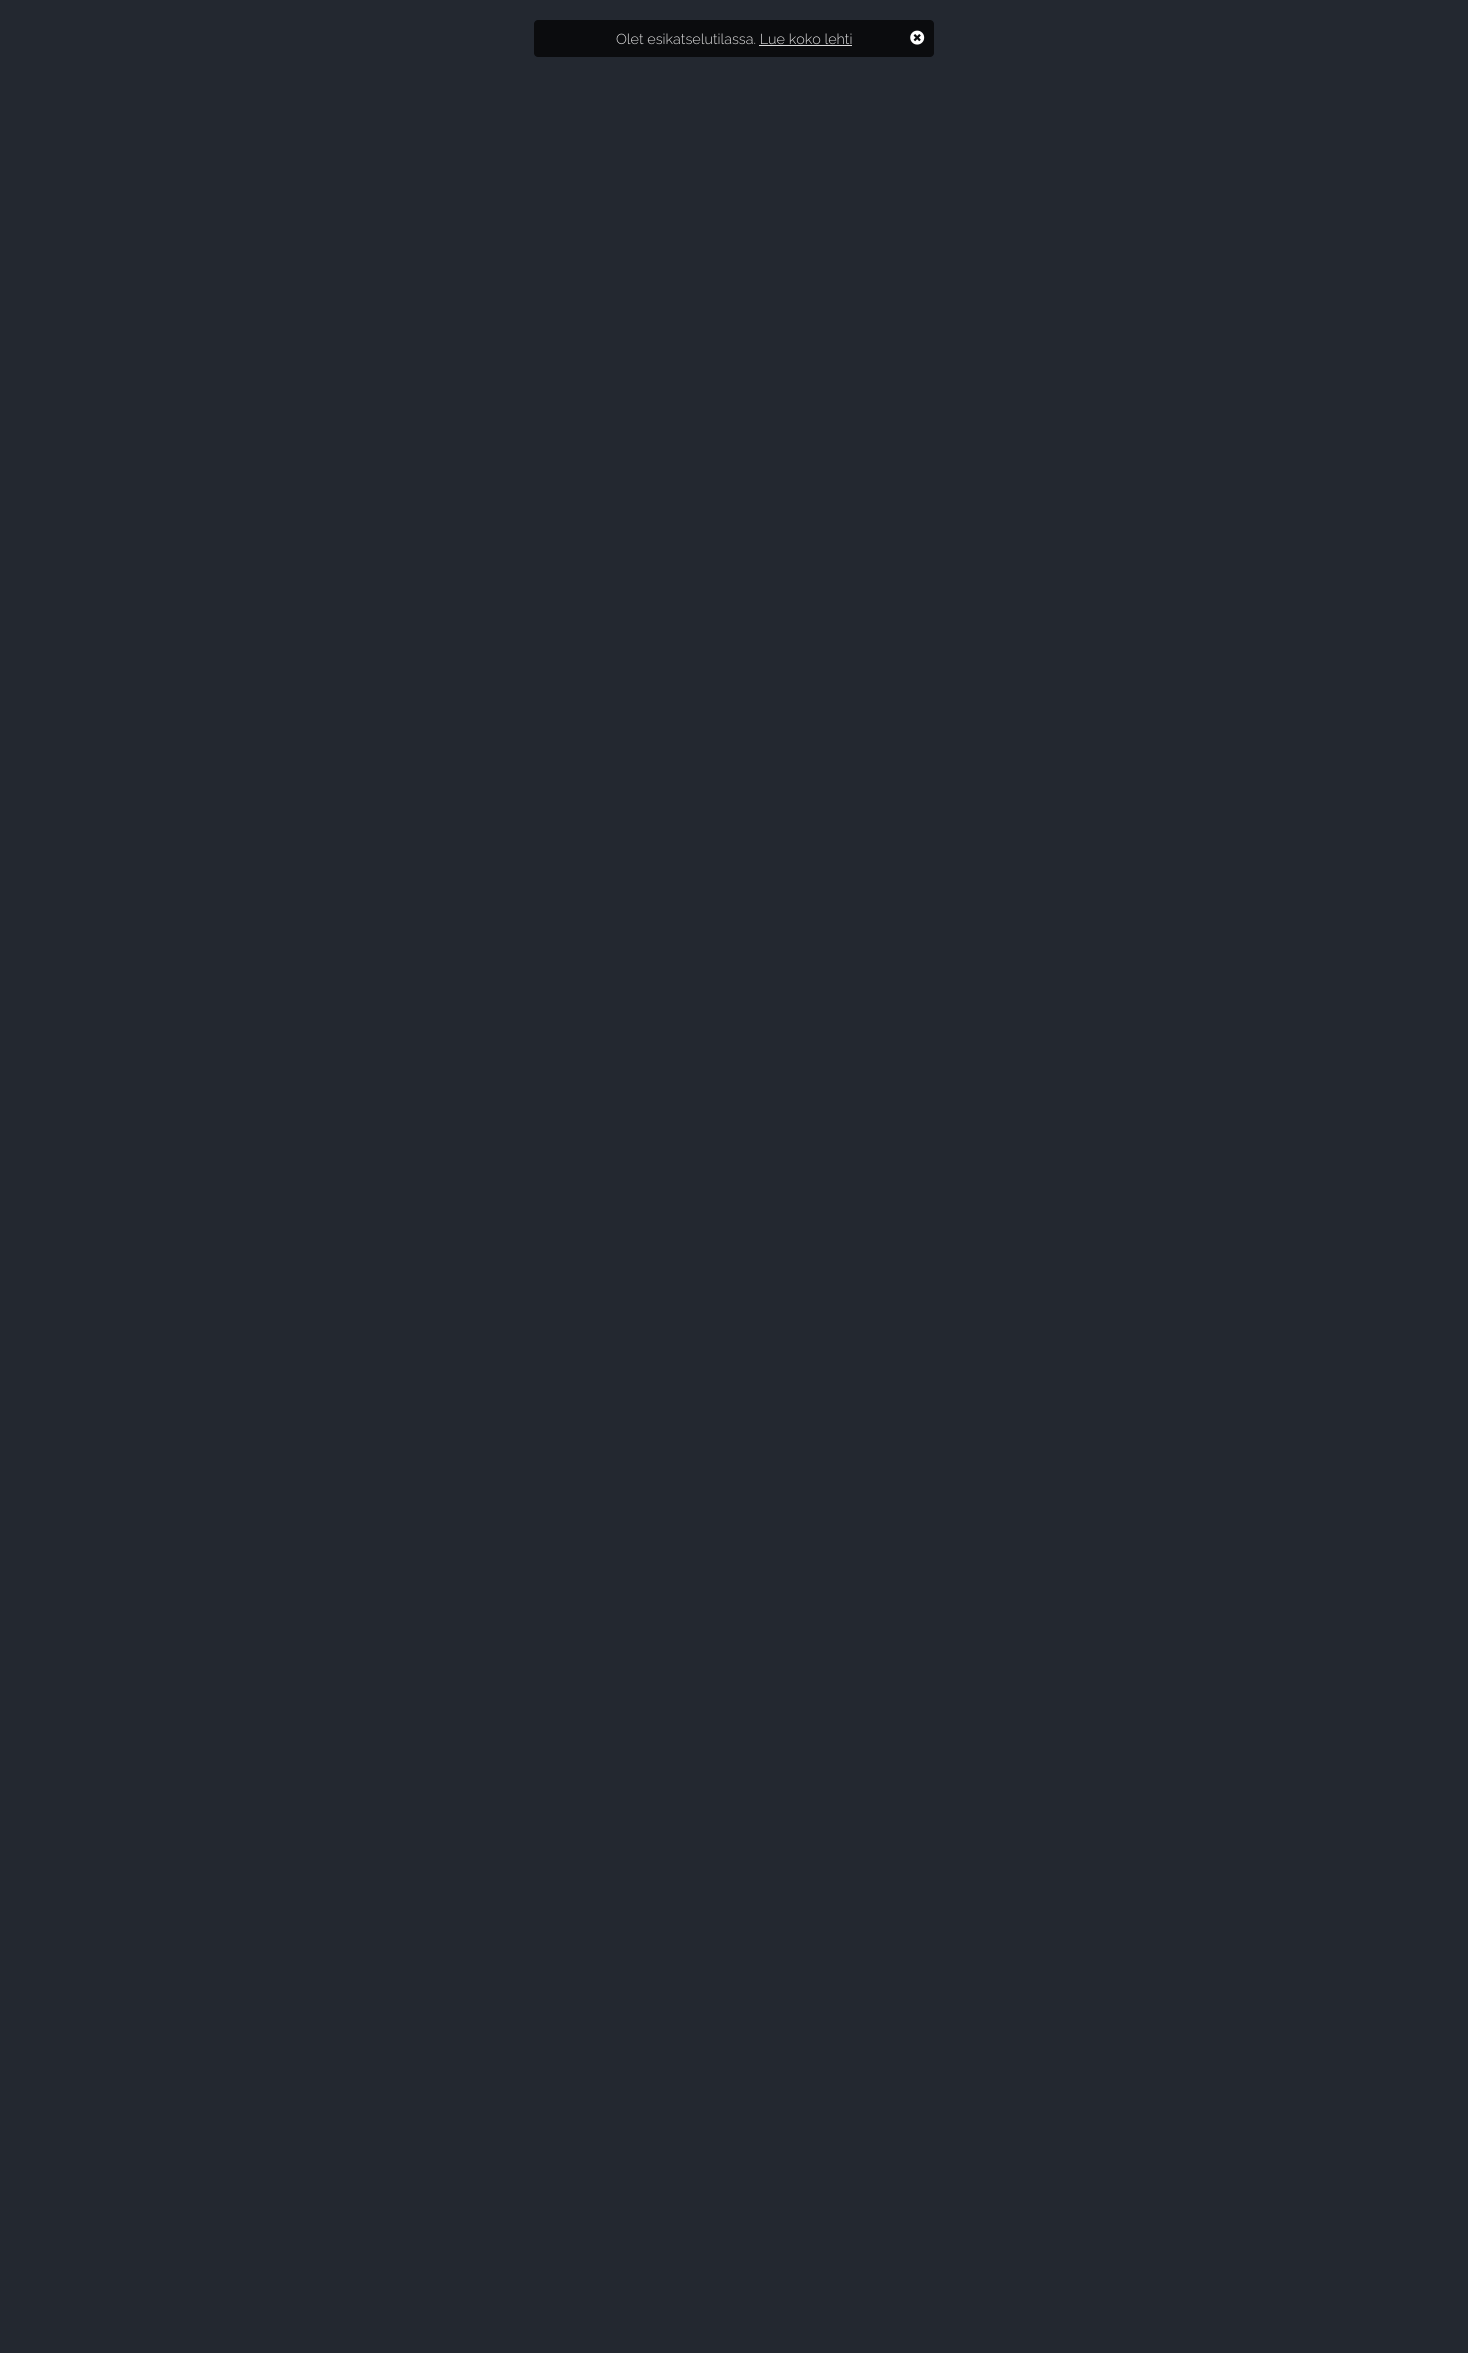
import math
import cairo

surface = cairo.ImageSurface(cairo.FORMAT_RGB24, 1468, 2353)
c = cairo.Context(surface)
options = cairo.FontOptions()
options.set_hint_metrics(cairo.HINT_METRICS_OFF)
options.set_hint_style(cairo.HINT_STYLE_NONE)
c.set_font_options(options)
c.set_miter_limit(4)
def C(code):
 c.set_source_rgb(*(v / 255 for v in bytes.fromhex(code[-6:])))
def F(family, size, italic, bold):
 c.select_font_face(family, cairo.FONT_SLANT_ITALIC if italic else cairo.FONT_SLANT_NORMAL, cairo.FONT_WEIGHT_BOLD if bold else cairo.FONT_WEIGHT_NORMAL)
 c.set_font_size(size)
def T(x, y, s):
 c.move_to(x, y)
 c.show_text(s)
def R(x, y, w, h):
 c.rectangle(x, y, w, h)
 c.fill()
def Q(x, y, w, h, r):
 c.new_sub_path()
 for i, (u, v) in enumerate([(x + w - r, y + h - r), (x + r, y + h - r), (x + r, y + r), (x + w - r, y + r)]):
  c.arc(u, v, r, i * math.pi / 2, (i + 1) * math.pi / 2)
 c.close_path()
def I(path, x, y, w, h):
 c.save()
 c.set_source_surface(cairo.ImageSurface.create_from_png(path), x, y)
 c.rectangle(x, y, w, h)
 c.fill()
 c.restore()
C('232830')
c.paint()
C('0b0c0e')
Q(534,20,400,37,4)
c.fill()
F('Raleway Light',14.4,0,0)
C('dddddd')
T(616,44,'Olet esikatselutilassa. Lue koko lehti')
I('1.png',910,30,15,15)
R(759,45,93,1)
surface.write_to_png('o.png')
